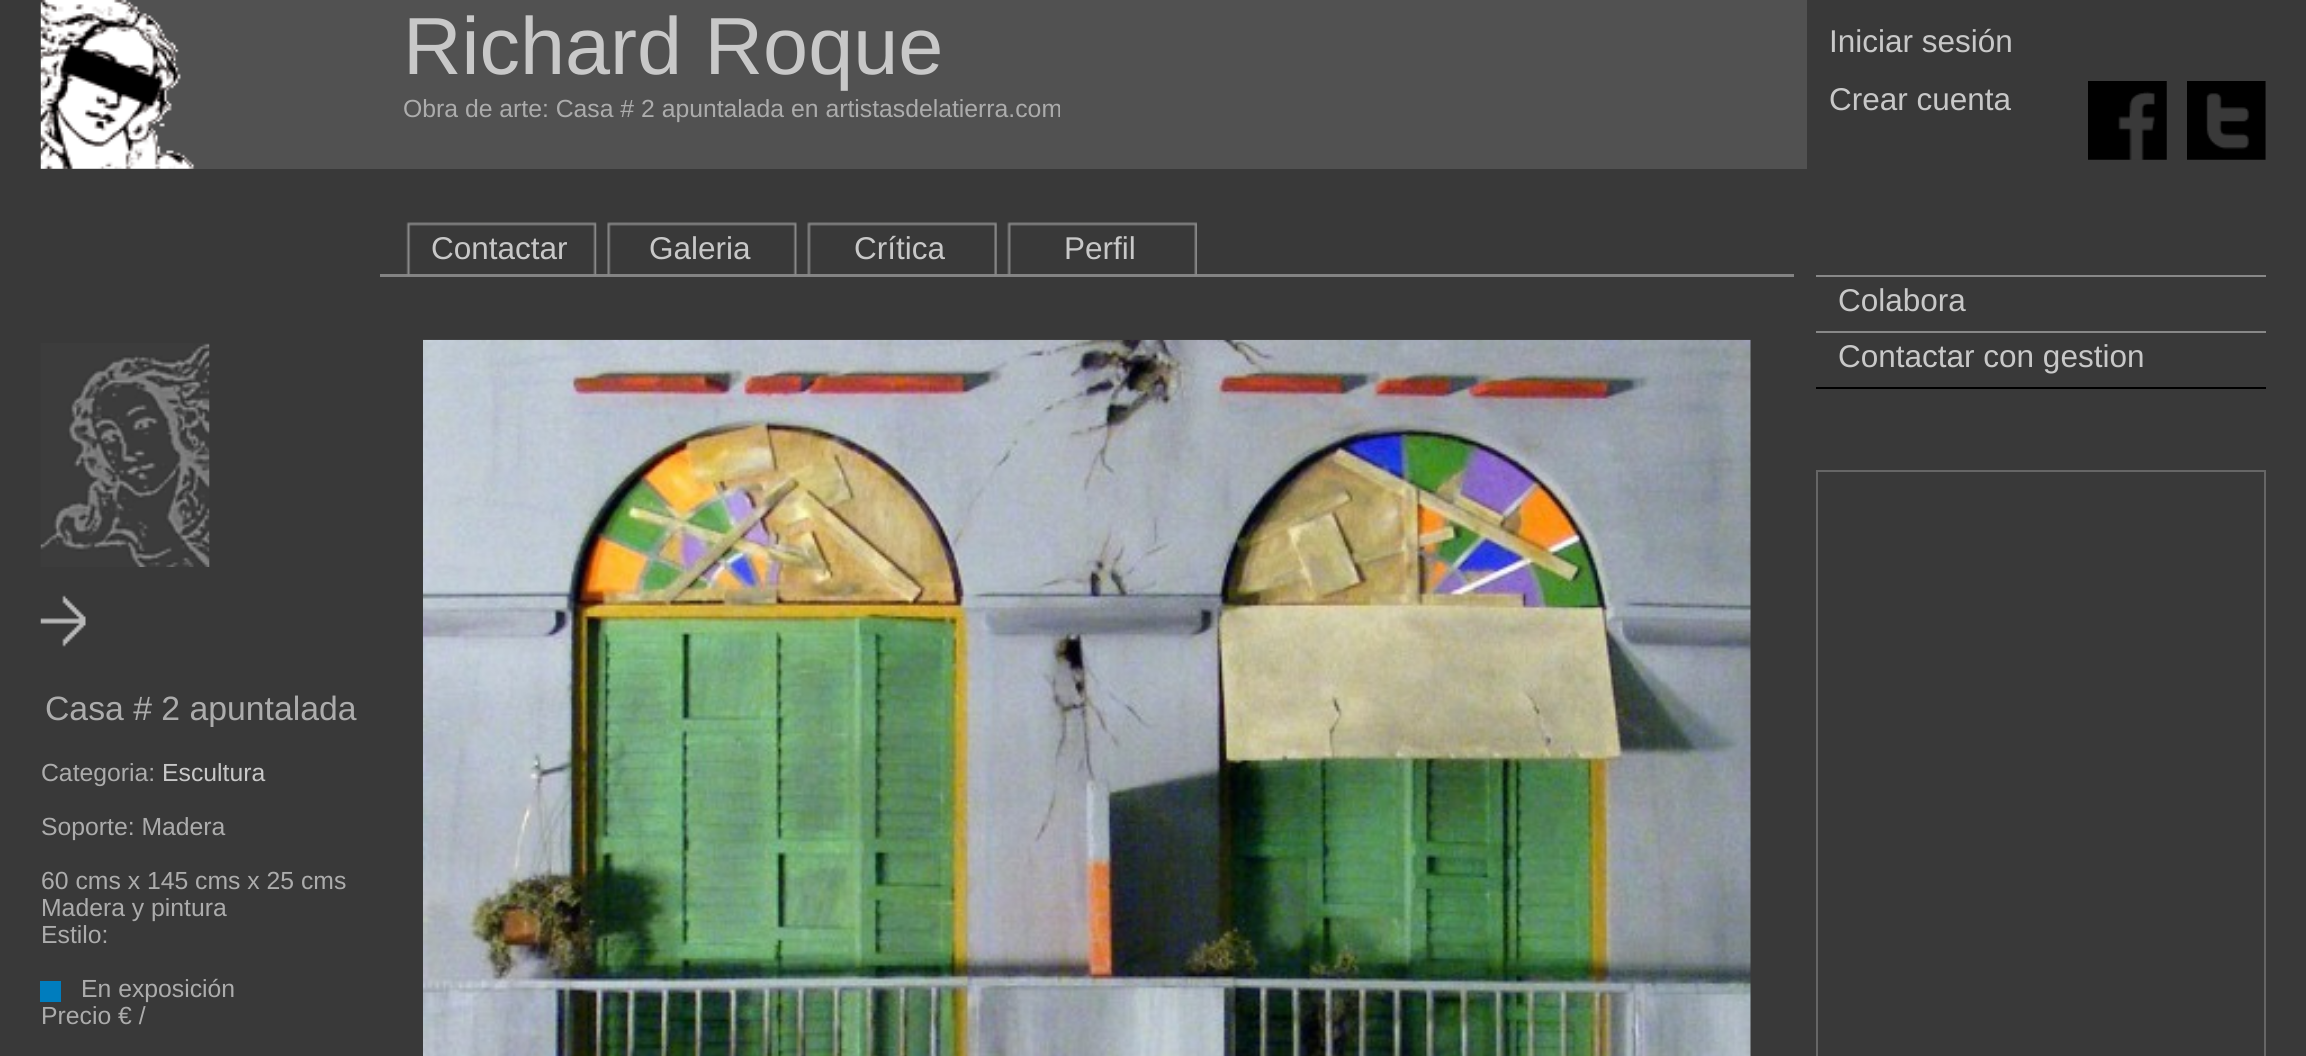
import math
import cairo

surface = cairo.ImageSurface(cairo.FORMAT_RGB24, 2306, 1056)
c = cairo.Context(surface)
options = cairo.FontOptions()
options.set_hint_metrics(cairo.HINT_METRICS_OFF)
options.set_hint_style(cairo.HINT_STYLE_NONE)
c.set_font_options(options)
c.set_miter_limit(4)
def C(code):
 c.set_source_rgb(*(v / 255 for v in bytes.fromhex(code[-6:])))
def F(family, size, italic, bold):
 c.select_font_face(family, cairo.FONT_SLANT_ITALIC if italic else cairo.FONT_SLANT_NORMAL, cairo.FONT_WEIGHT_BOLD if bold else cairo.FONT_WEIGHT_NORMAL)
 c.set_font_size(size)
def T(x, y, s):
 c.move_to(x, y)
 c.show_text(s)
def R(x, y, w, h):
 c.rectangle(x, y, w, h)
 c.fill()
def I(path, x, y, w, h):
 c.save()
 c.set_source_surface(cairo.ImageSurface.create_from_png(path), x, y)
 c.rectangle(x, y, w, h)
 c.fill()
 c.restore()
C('393939')
c.paint()
C('515151')
R(41,0,1766,169)
I('1.png',40,0,155,169)
F('Liberation Sans',81,0,0)
C('c8c8c8')
T(403,74,'Richard Roque')
F('Liberation Sans',24.75,0,0)
C('acacac')
T(403,117,'Obra de arte: Casa # 2 apuntalada en artistasdelatierra.com')
F('Liberation Sans',31.5,0,0)
C('c8c8c8')
T(1829,52,'Iniciar sesión')
T(1829,110,'Crear cuenta')
I('2.png',2088,81,79,79)
I('3.png',2187,81,79,79)
C('838383')
R(380,274,1414,3)
I('4.png',406,222,191,54)
C('c8c8c8')
T(431,259,'Contactar')
I('5.png',607,222,190,54)
T(649,259,'Galeria')
I('6.png',807,222,190,54)
T(854,259,'Crítica')
I('7.png',1007,222,190,54)
T(1064,259,'Perfil')
I('8.png',423,339,1328,717)
C('000000')
R(1816,387,450,2)
C('888888')
R(1816,275,450,2)
C('c8c8c8')
T(1838,311,'Colabora')
C('888888')
R(1816,331,450,2)
C('c8c8c8')
T(1838,367,'Contactar con gestion')
c.rectangle(1817,471,448,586)
C('666666')
c.stroke()
I('9.png',40,343,170,224)
I('10.png',40,595,46,52)
F('Liberation Sans',33.75,0,0)
C('acacac')
T(45,720,'Casa # 2 apuntalada')
F('Liberation Sans',24.75,0,0)
T(41,781,'Categoria:')
C('c8c8c8')
T(162,781,'Escultura')
C('acacac')
T(41,835,'Soporte: Madera')
T(41,889,'60 cms x 145 cms x 25 cms')
T(41,916,'Madera y pintura')
T(41,943,'Estilo:')
C('007dbe')
R(40,981,21,21)
C('acacac')
T(81,997,'En exposición')
T(41,1024,'Precio € /')
surface.write_to_png('o.png')
